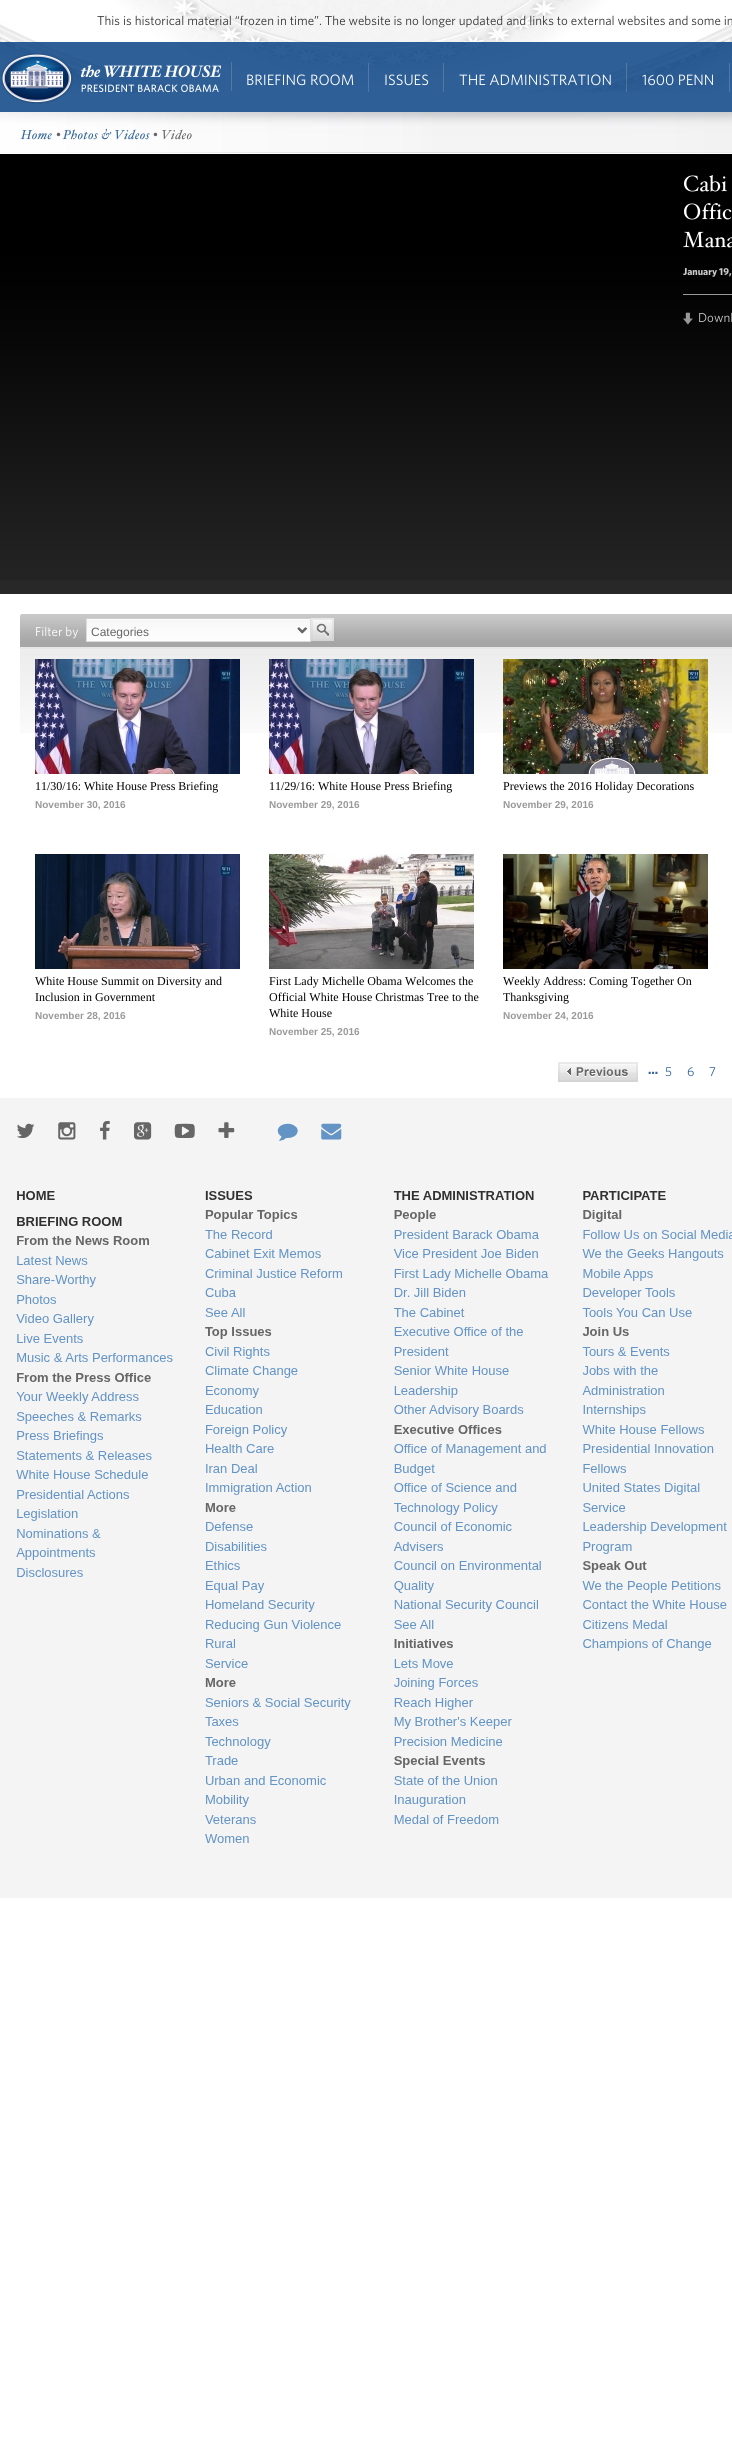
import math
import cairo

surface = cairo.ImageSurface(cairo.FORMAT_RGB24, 732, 2440)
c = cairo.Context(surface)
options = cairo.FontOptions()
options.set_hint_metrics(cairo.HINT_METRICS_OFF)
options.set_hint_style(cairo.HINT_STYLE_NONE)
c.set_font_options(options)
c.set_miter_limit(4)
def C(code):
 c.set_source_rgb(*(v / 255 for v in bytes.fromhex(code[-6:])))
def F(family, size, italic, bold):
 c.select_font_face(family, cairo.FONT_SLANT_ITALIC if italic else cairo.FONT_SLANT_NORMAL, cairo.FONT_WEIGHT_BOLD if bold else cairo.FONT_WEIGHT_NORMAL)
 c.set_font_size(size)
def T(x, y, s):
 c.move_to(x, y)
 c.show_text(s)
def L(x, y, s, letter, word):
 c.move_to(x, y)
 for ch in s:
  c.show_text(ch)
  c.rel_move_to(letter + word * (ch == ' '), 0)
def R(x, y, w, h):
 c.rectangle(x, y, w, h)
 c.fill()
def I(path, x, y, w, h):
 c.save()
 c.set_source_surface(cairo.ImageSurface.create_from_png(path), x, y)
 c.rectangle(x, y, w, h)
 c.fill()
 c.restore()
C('ffffff')
c.paint()
I('1.png',0,0,732,94)
F('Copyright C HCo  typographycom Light',13,0,0)
C('353535')
T(97,25,'This is historical material “frozen in time”. The website is no longer updated and links to external websites and some in')
c.set_source_rgba(0,0.235,0.502,0.82)
R(0,42,732,70)
I('2.png',1,53,220,51)
I('3.png',231,62,1,29)
I('4.png',368,63,1,29)
F('Copyright C HCo  typographycom Light',15,0,0)
C('ffffff')
T(246,85,'BRIEFING ROOM')
I('5.png',443,63,1,29)
T(384,85,'ISSUES')
I('6.png',626,63,1,29)
T(459,85,'THE ADMINISTRATION')
I('7.png',729,63,1,29)
T(642,85,'1600 PENN')
I('8.png',0,112,732,41)
F('Copyright C HCo  typographycom Light',13,1,0)
C('336699')
L(21,139,'Home',.4,0)
C('666666')
L(56,139,'•',.4,0)
C('336699')
L(63,139,'Photos & Videos',.4,0)
C('666666')
L(153,139,'• Video',.4,0)
C('282828')
R(0,580,732,14)
I('9.png',0,154,732,426)
F('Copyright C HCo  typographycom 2 Light',22,0,0)
C('ffffff')
T(683,191,'Cabi')
T(683,219,'Offic')
T(683,247,'Mana')
F('Copyright C HCo  typographycom',10,0,0)
C('cccccc')
T(683,275,'January 19,')
C('999999')
R(683,294,49,1)
I('10.png',683,312,10,13)
F('Copyright C HCo  typographycom Light',13,0,0)
C('cccccc')
T(698,322,'Downl')
C('e6e6e6')
R(20,647,712,2)
I('11.png',20,614,712,33)
C('ffffff')
T(35,636,'Filter by')
C('fdfdfd')
R(87,619,223,22)
I('12.png',87,620,223,14)
C('cecece')
R(86,618,225,1)
C('dcdcdc')
R(310,618,1,24)
R(86,641,225,1)
R(86,618,1,24)
c.new_path()
c.move_to(298.5,628)
c.line_to(302.5,632)
c.line_to(306.5,628)
C('666666')
c.stroke()
F('Liberation Sans',12,0,0)
T(91,636,'Categories')
I('13.png',311,618,23,23)
I('14.png',20,649,712,84)
I('15.png',35,659,205,115)
F('Liberation Serif',12,0,0)
C('000000')
T(35,790,'11/30/16: White House Press Briefing')
F('Liberation Sans',10,0,1)
C('999999')
T(35,808,'November 30, 2016')
I('16.png',269,659,205,115)
F('Liberation Serif',12,0,0)
C('000000')
T(269,790,'11/29/16: White House Press Briefing')
F('Liberation Sans',10,0,1)
C('999999')
T(269,808,'November 29, 2016')
I('17.png',503,659,205,115)
F('Liberation Serif',12,0,0)
C('000000')
T(503,790,'Previews the 2016 Holiday Decorations')
F('Liberation Sans',10,0,1)
C('999999')
T(503,808,'November 29, 2016')
I('18.png',35,854,205,115)
F('Liberation Serif',12,0,0)
C('000000')
T(35,985,'White House Summit on Diversity and')
T(35,1001,'Inclusion in Government')
F('Liberation Sans',10,0,1)
C('999999')
T(35,1019,'November 28, 2016')
I('19.png',269,854,205,115)
F('Liberation Serif',12,0,0)
C('000000')
T(269,985,'First Lady Michelle Obama Welcomes the')
T(269,1001,'Official White House Christmas Tree to the')
T(269,1017,'White House')
F('Liberation Sans',10,0,1)
C('999999')
T(269,1035,'November 25, 2016')
I('20.png',503,854,205,115)
F('Liberation Serif',12,0,0)
C('000000')
T(503,985,'Weekly Address: Coming Together On')
T(503,1001,'Thanksgiving')
F('Liberation Sans',10,0,1)
C('999999')
T(503,1019,'November 24, 2016')
I('21.png',558,1062,80,20)
F('Copyright C HCo  typographycom',13,0,0)
C('336699')
T(648,1074,'…')
F('Copyright C HCo  typographycom Light',13,0,0)
T(665,1076,'5')
T(687,1076,'6')
T(709,1076,'7')
C('f4f4f4')
R(0,1843,732,55)
I('22.png',0,1098,732,745)
surface.write_to_png('o.png')
